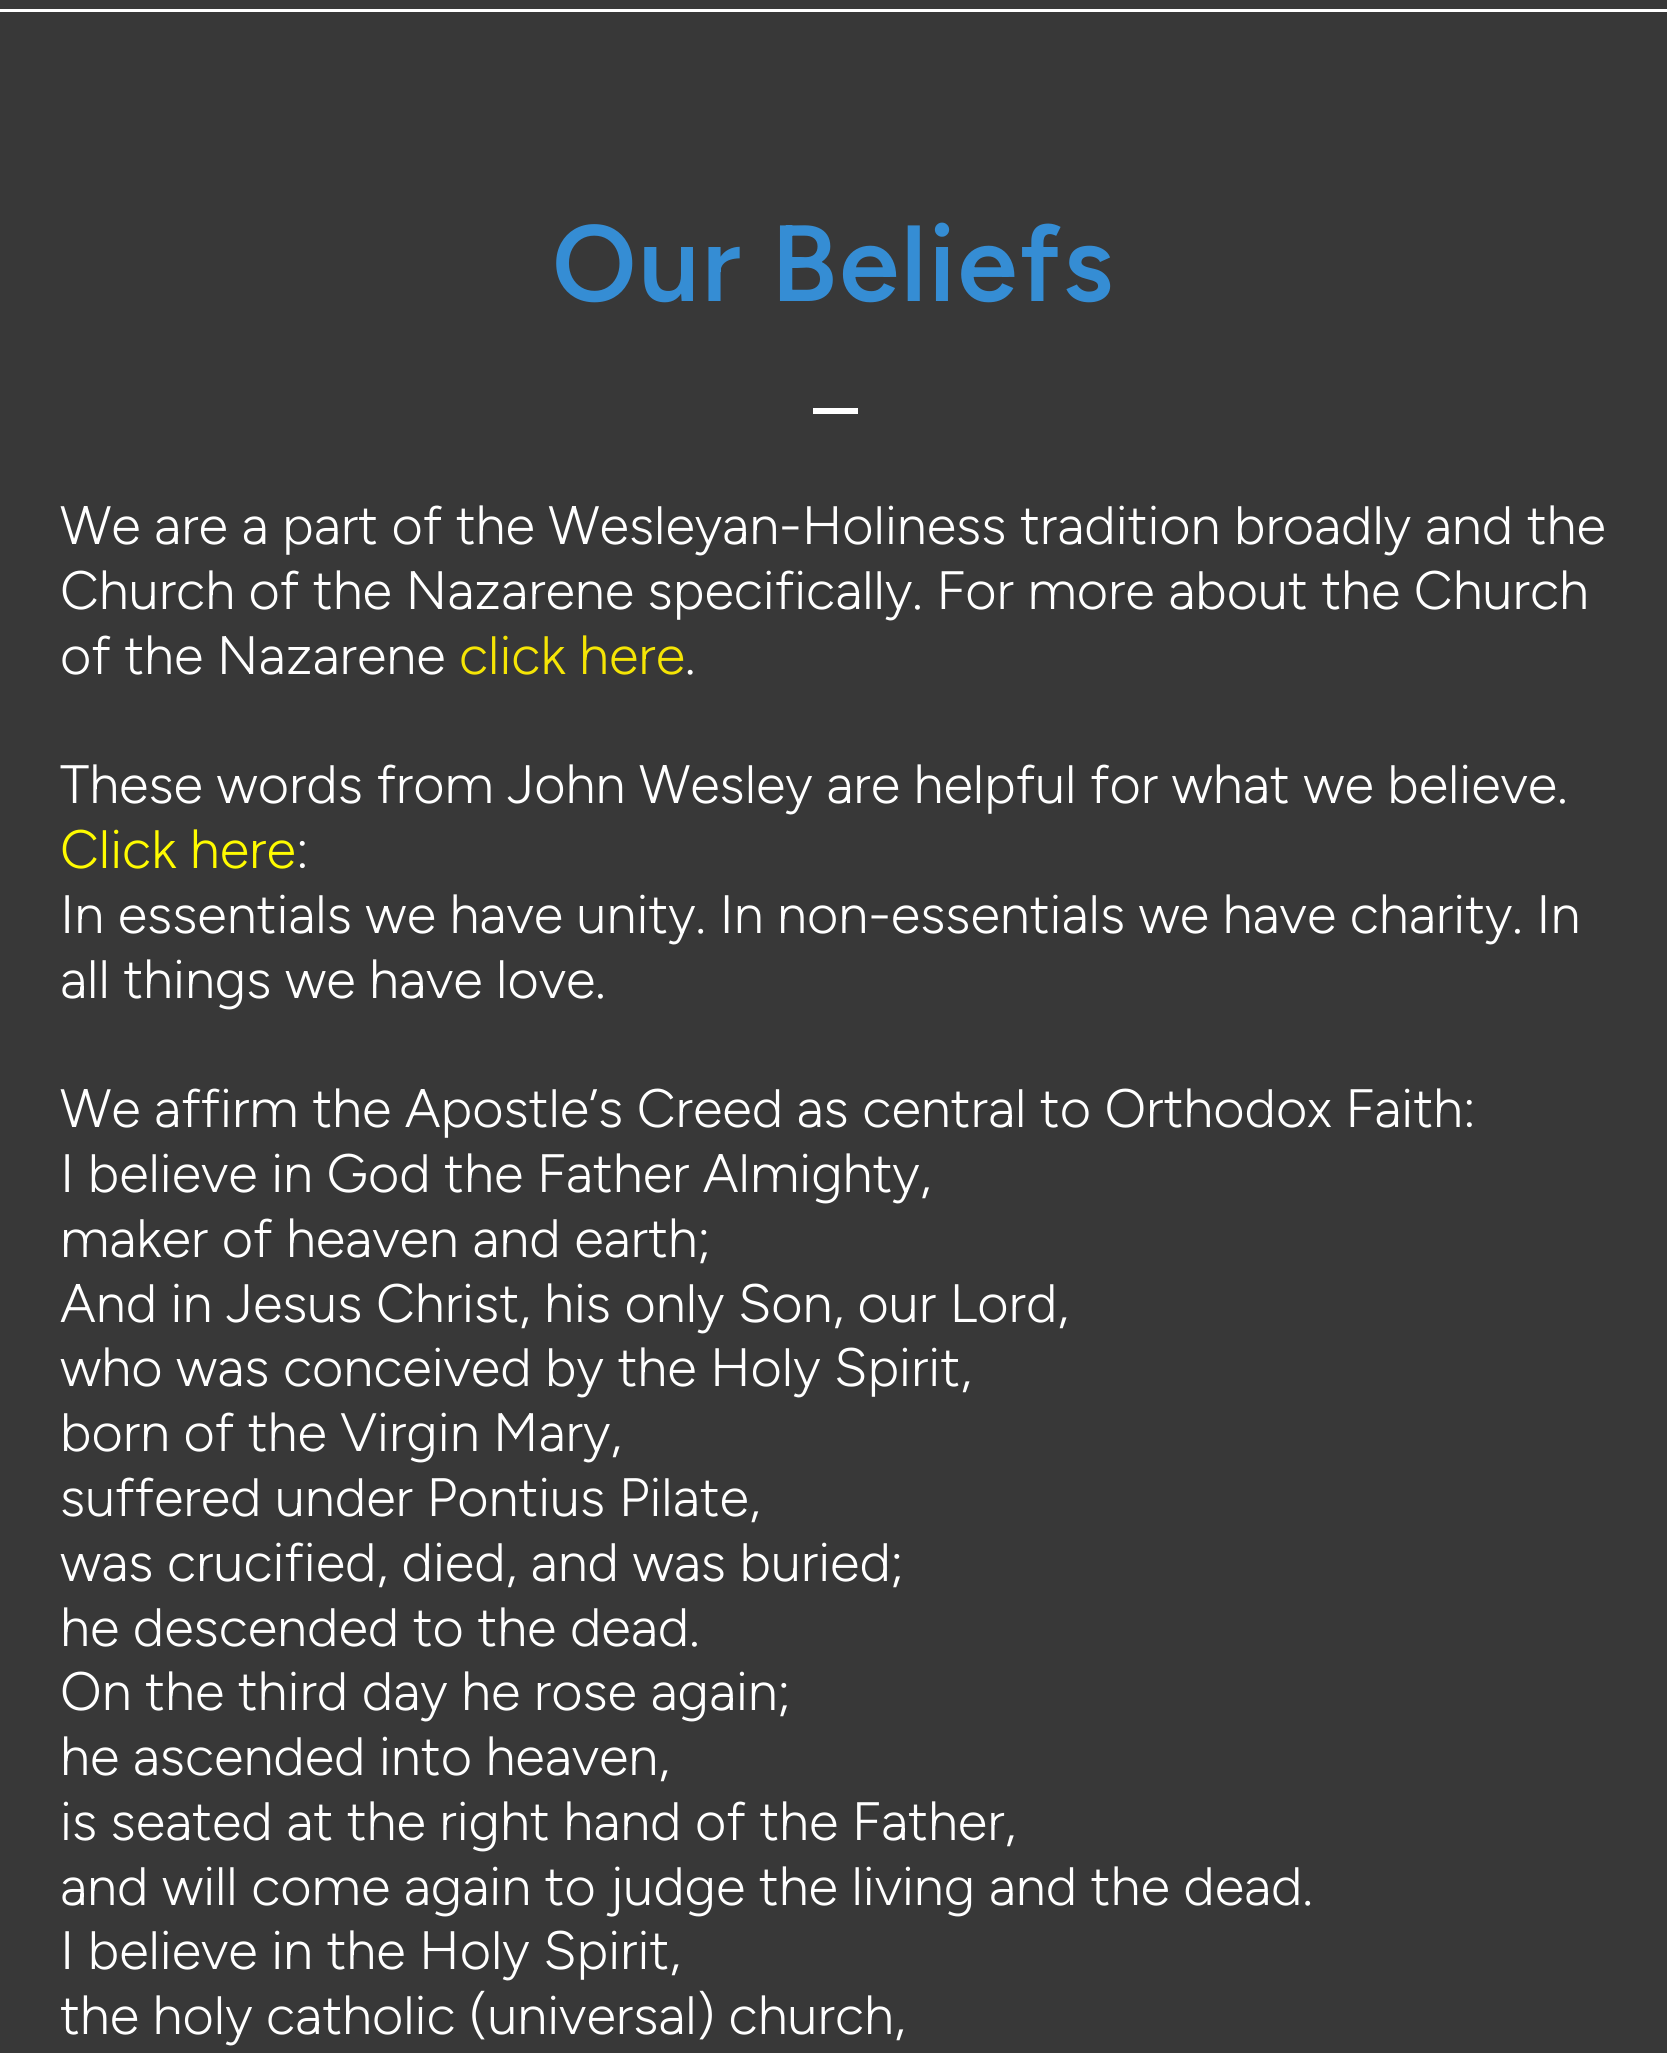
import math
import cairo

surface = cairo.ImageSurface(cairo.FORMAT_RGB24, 1667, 2053)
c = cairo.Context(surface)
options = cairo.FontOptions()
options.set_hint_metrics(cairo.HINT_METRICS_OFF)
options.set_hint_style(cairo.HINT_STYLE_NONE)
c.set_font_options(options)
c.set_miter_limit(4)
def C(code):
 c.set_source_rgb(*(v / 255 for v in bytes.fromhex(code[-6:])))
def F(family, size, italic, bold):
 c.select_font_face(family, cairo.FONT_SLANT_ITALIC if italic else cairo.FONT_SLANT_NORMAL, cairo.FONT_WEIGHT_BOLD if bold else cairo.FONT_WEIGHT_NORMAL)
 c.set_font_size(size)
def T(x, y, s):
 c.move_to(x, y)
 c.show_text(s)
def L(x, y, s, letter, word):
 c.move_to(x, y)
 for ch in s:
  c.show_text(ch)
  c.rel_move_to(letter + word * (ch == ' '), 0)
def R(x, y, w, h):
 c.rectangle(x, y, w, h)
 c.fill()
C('383838')
c.paint()
C('ffffff')
R(0,9,1667,3)
F('Figtree SemiBold',108,0,0)
C('358dd4')
L(552,301,'Our Beliefs',2.1,0)
C('ffffff')
R(813,408,45,6)
F('Figtree Light',54,0,0)
T(60,544,'We are a part of the Wesleyan-Holiness tradition broadly and the')
T(60,609,'Church of the Nazarene specifically. For more about the Church')
T(60,674,'of the Nazarene')
C('f5e505')
T(459,674,'click here')
C('ffffff')
T(685,674,'.')
T(60,803,'These words from John Wesley are helpful for what we believe.')
C('fffb00')
T(60,868,'Click here')
C('ffffff')
T(296,868,':')
T(60,933,'In essentials we have unity. In non-essentials we have charity. In')
T(60,998,'all things we have love.')
T(60,1127,'We affirm the Apostle’s Creed as central to Orthodox Faith:')
T(60,1192,'I believe in God the Father Almighty,')
T(60,1257,'maker of heaven and earth;')
T(60,1322,'And in Jesus Christ, his only Son, our Lord,')
T(60,1386,'who was conceived by the Holy Spirit,')
T(60,1451,'born of the Virgin Mary,')
T(60,1516,'suffered under Pontius Pilate,')
T(60,1581,'was crucified, died, and was buried;')
T(60,1646,'he descended to the dead.')
T(60,1710,'On the third day he rose again;')
T(60,1775,'he ascended into heaven,')
T(60,1840,'is seated at the right hand of the Father,')
T(60,1905,'and will come again to judge the living and the dead.')
T(60,1969,'I believe in the Holy Spirit,')
T(60,2034,'the holy catholic (universal) church,')
surface.write_to_png('o.png')
